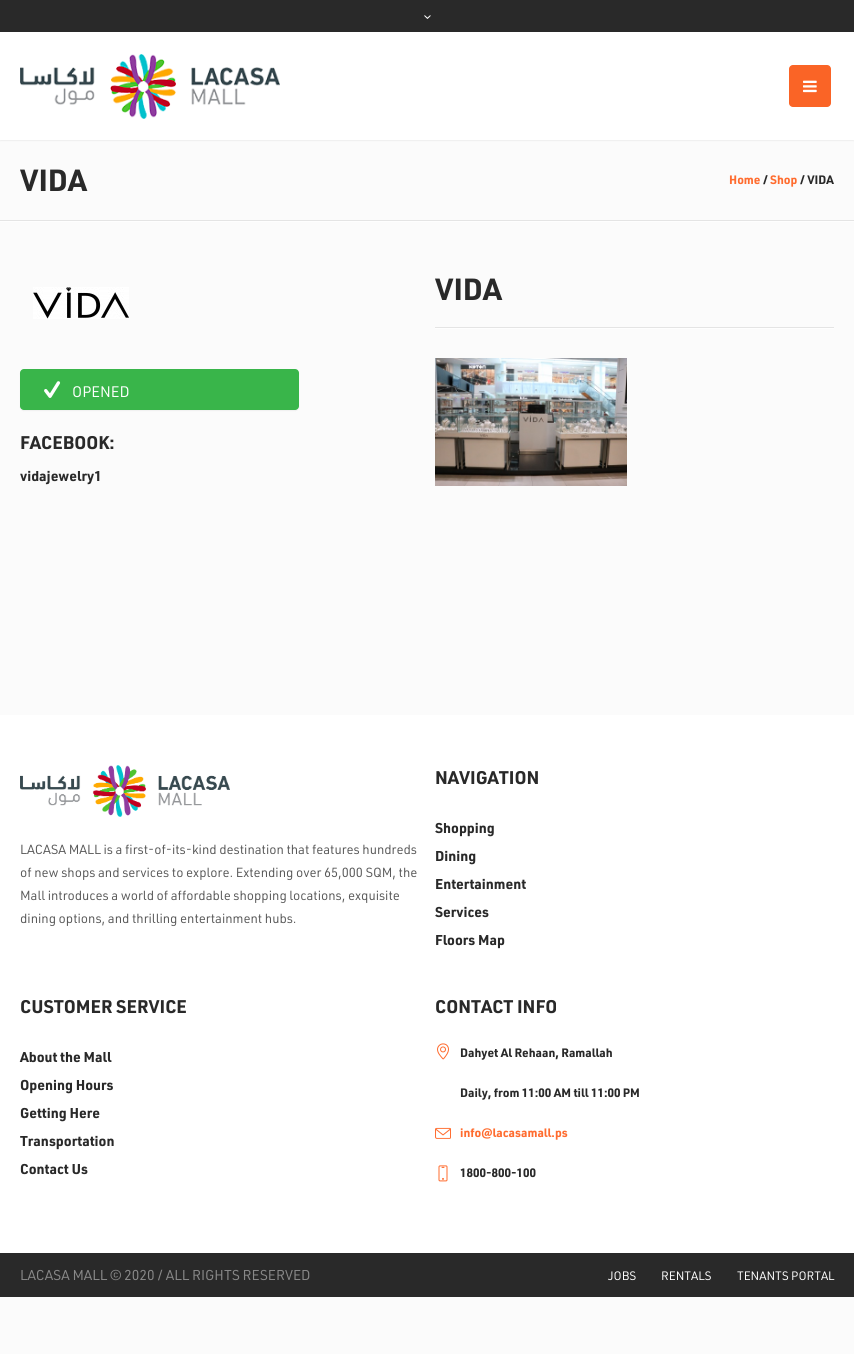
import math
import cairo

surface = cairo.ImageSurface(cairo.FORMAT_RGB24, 854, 1354)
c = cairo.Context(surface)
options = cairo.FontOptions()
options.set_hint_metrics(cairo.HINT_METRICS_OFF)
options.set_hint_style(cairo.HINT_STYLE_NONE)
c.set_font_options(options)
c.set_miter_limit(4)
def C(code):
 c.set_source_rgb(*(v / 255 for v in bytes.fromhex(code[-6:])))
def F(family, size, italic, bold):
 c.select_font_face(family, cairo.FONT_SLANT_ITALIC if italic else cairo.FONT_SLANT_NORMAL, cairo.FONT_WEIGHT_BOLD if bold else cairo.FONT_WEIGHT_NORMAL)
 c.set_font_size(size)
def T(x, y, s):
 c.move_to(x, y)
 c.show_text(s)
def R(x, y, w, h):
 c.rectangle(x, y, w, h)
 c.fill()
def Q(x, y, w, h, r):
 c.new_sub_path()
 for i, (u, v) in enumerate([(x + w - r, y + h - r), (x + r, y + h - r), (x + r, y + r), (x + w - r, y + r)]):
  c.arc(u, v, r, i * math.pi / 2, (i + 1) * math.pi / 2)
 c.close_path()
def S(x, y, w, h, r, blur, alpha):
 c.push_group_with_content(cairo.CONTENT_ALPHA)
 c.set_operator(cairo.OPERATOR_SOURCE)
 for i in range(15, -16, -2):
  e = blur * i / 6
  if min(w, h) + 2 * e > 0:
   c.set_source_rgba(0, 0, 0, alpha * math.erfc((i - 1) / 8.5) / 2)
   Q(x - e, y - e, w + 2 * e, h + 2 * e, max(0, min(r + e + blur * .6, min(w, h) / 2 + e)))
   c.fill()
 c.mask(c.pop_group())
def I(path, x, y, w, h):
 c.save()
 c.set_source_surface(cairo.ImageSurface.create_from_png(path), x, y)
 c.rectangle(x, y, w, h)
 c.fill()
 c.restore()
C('fbfbfb')
c.paint()
C('000000')
S(0,1,854,140,0,.5,.05)
C('292929')
R(0,0,854,32)
I('1.png',424,15,7,4)
C('ffffff')
R(0,32,854,108)
I('2.png',20,54,260,65)
C('fa6426')
Q(789,65,42,42,4)
c.fill()
I('3.png',803,80,14,13)
C('fefefe')
R(0,221,854,1)
C('e4e4e4')
R(0,220,854,1)
F('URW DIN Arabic',30,0,1)
C('292929')
T(20,191,'VIDA')
F('URW DIN Arabic',12,0,1)
C('ff6c2f')
T(729,184,'Home')
C('292929')
T(763,184,'/')
C('ff6c2f')
T(770,184,'Shop')
C('292929')
T(800,184,'/ VIDA')
F('URW DIN Arabic',30,0,1)
T(435,300,'VIDA')
C('fefefe')
R(435,328,399,1)
C('e4e4e4')
R(435,327,399,1)
I('4.png',435,358,192,128)
I('5.png',33,287,96,32)
C('000000')
S(20,370,279,41,4,.5,.05)
C('39b54a')
Q(20,369,279,41,4)
c.fill()
I('6.png',44,381,17,17)
F('URW DIN Arabic',15,0,0)
C('ffffff')
T(72,397,'OPENED')
F('URW DIN Arabic',18,0,1)
C('292929')
T(20,449,'FACEBOOK:')
F('URW DIN Arabic',14,0,1)
T(20,481,'vidajewelry1')
C('ffffff')
R(0,715,854,538)
I('7.png',20,765,210,52)
F('URW DIN Arabic',13,0,0)
C('595959')
T(20,854,'LACASA MALL is a first-of-its-kind destination that features hundreds')
T(20,877,'of new shops and services to explore. Extending over 65,000 SQM, the')
T(20,900,'Mall introduces a world of affordable shopping locations, exquisite')
T(20,923,'dining options, and thrilling entertainment hubs.')
F('URW DIN Arabic',18,0,1)
C('292929')
T(435,784,'NAVIGATION')
F('URW DIN Arabic',14,0,1)
T(435,833,'Shopping')
T(435,861,'Dining')
T(435,889,'Entertainment')
T(435,917,'Services')
T(435,945,'Floors Map')
F('URW DIN Arabic',18,0,1)
T(20,1013,'CUSTOMER SERVICE')
F('URW DIN Arabic',14,0,1)
T(20,1062,'About the Mall')
T(20,1090,'Opening Hours')
T(20,1118,'Getting Here')
T(20,1146,'Transportation')
T(20,1174,'Contact Us')
F('URW DIN Arabic',18,0,1)
T(435,1013,'CONTACT INFO')
I('8.png',437,1043,12,17)
F('URW DIN Arabic',12,0,1)
T(460,1057,'Dahyet Al Rehaan, Ramallah')
T(460,1097,'Daily, from 11:00 AM till 11:00 PM')
I('9.png',435,1127,16,12)
C('ff6c2f')
T(460,1137,'info@lacasamall.ps')
I('10.png',438,1165,10,17)
C('292929')
T(460,1177,'1800-800-100')
R(0,1253,854,44)
F('URW DIN Arabic',14,0,0)
C('898989')
T(20,1280,'LACASA MALL © 2020 / ALL RIGHTS RESERVED')
F('URW DIN Arabic',12,0,0)
C('ffffff')
T(608,1280,'JOBS')
T(661,1280,'RENTALS')
T(737,1280,'TENANTS PORTAL')
surface.write_to_png('o.png')
